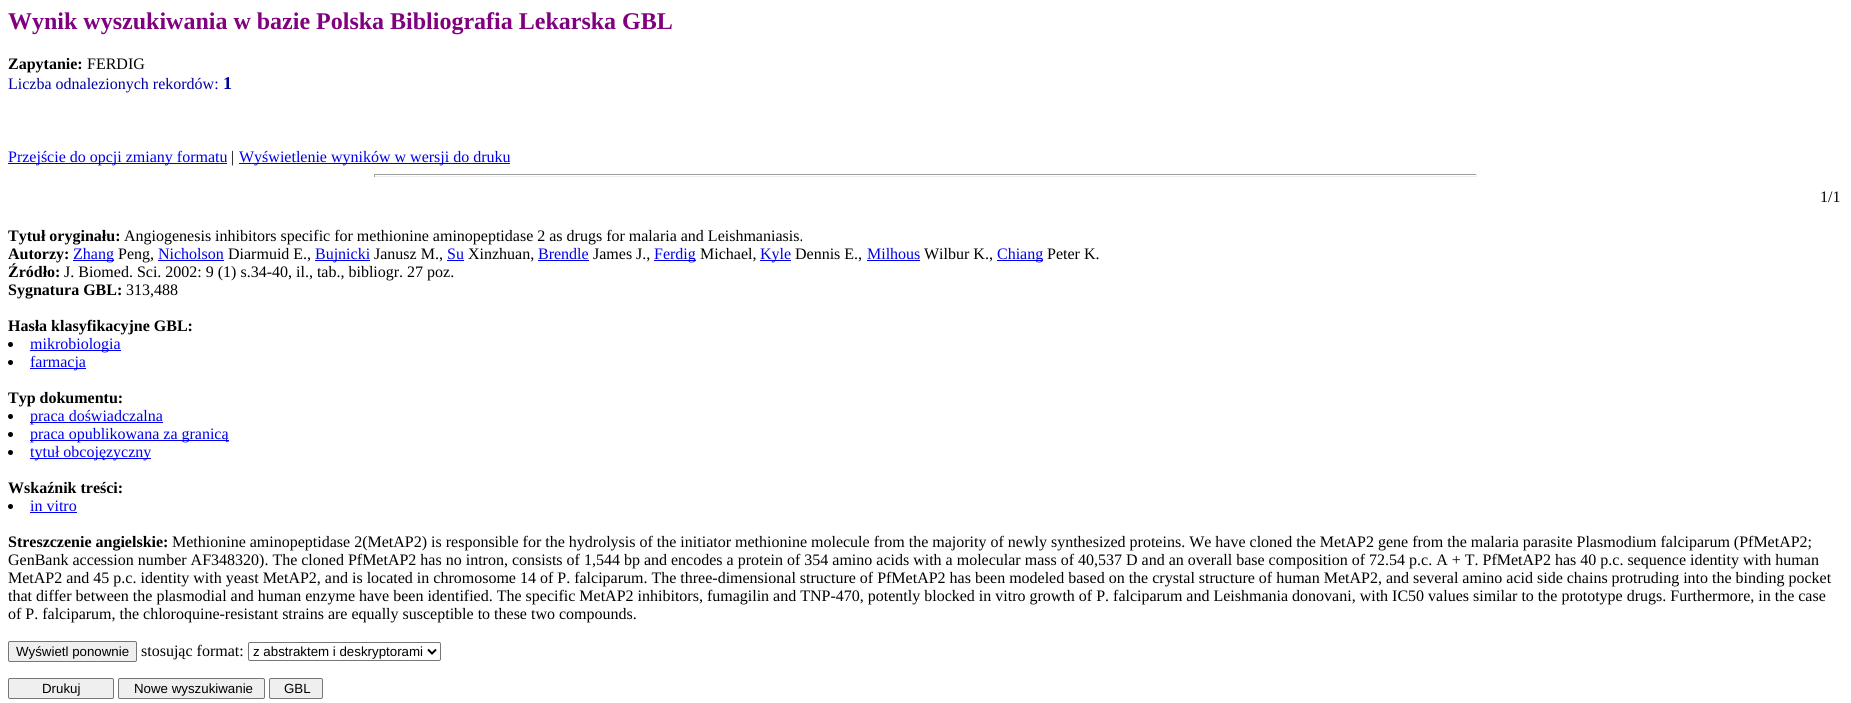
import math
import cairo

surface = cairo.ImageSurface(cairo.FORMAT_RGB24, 1851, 703)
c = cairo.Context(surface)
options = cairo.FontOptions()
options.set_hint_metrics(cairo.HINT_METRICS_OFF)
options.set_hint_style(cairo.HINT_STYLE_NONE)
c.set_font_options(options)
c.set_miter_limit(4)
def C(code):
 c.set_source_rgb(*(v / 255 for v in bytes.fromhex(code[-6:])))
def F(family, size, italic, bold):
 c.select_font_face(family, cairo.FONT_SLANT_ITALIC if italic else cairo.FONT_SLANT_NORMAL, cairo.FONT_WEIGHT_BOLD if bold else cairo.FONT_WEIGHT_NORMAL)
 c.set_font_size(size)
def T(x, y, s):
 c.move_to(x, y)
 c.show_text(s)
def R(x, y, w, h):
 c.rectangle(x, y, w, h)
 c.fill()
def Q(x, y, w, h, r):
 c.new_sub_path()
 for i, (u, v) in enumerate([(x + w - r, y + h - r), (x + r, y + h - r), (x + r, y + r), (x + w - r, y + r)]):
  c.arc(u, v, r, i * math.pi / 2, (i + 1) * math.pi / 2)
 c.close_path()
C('ffffff')
c.paint()
F('Liberation Serif',24,0,1)
C('800080')
T(8,29,'Wynik wyszukiwania w bazie Polska Bibliografia Lekarska GBL')
F('Liberation Serif',16,0,1)
C('000000')
T(8,69,'Zapytanie:')
F('Liberation Serif',16,0,0)
T(87,69,'FERDIG')
C('0000a0')
T(8,89,'Liczba odnalezionych rekordów:')
F('Liberation Serif',18,0,1)
T(223,89,'1')
C('0000ee')
R(8,163,219,1)
F('Liberation Serif',16,0,0)
T(8,162,'Przejście do opcji zmiany formatu')
C('000000')
T(231,162,'|')
C('0000ee')
R(239,163,271,1)
T(239,162,'Wyświetlenie wyników w wersji do druku')
C('9f9f9f')
R(374,174,1103,1)
C('eeeeee')
R(1476,174,1,3)
R(374,176,1103,1)
C('9f9f9f')
R(374,174,1,3)
C('000000')
T(1820,202,'1/1')
F('Liberation Serif',16,0,1)
T(8,241,'Tytuł oryginału:')
F('Liberation Serif',16,0,0)
T(124,241,'Angiogenesis inhibitors specific for methionine aminopeptidase 2 as drugs for malaria and Leishmaniasis.')
F('Liberation Serif',16,0,1)
T(8,259,'Autorzy:')
C('0000ee')
R(73,260,41,1)
F('Liberation Serif',16,0,0)
T(73,259,'Zhang')
C('000000')
T(118,259,'Peng,')
C('0000ee')
T(158,259,'Nicholson')
R(158,260,66,1)
C('000000')
T(228,259,'Diarmuid E.,')
C('0000ee')
R(315,260,55,1)
T(315,259,'Bujnicki')
C('000000')
T(374,259,'Janusz M.,')
C('0000ee')
T(447,259,'Su')
R(447,260,17,1)
C('000000')
T(468,259,'Xinzhuan,')
C('0000ee')
T(538,259,'Brendle')
R(538,260,51,1)
C('000000')
T(593,259,'James J.,')
C('0000ee')
R(654,260,42,1)
T(654,259,'Ferdig')
C('000000')
T(700,259,'Michael,')
C('0000ee')
R(760,260,31,1)
T(760,259,'Kyle')
C('000000')
T(795,259,'Dennis E.,')
C('0000ee')
T(867,259,'Milhous')
R(867,260,53,1)
C('000000')
T(924,259,'Wilbur K.,')
C('0000ee')
R(997,260,46,1)
T(997,259,'Chiang')
C('000000')
T(1047,259,'Peter K.')
F('Liberation Serif',16,0,1)
T(8,277,'Źródło:')
F('Liberation Serif',16,0,0)
T(64,277,'J. Biomed. Sci. 2002: 9 (1) s.34-40, il., tab., bibliogr. 27 poz.')
F('Liberation Serif',16,0,1)
T(8,295,'Sygnatura GBL:')
F('Liberation Serif',16,0,0)
T(126,295,'313,488')
F('Liberation Serif',16,0,1)
T(8,331,'Hasła klasyfikacyjne GBL:')
c.new_path()
c.arc(10.5,344.5,2.5,0,2 * math.pi)
c.fill()
C('0000ee')
R(30,350,91,1)
F('Liberation Serif',16,0,0)
T(30,349,'mikrobiologia')
C('000000')
c.new_path()
c.arc(10.5,362.5,2.5,0,2 * math.pi)
c.fill()
C('0000ee')
R(30,368,56,1)
T(30,367,'farmacja')
F('Liberation Serif',16,0,1)
C('000000')
T(8,403,'Typ dokumentu:')
c.new_path()
c.arc(10.5,416.5,2.5,0,2 * math.pi)
c.fill()
C('0000ee')
R(30,422,133,1)
F('Liberation Serif',16,0,0)
T(30,421,'praca doświadczalna')
C('000000')
c.new_path()
c.arc(10.5,434.5,2.5,0,2 * math.pi)
c.fill()
C('0000ee')
R(30,440,199,1)
T(30,439,'praca opublikowana za granicą')
C('000000')
c.new_path()
c.arc(10.5,452.5,2.5,0,2 * math.pi)
c.fill()
C('0000ee')
R(30,458,121,1)
T(30,457,'tytuł obcojęzyczny')
F('Liberation Serif',16,0,1)
C('000000')
T(8,493,'Wskaźnik treści:')
c.new_path()
c.arc(10.5,506.5,2.5,0,2 * math.pi)
c.fill()
F('Liberation Serif',16,0,0)
C('0000ee')
T(30,511,'in vitro')
R(30,512,47,1)
F('Liberation Serif',16,0,1)
C('000000')
T(8,547,'Streszczenie angielskie:')
F('Liberation Serif',16,0,0)
T(172,547,'Methionine aminopeptidase 2(MetAP2) is responsible for the hydrolysis of the initiator methionine molecule from the majority of newly synthesized proteins. We have cloned the MetAP2 gene from the malaria parasite Plasmodium falciparum (PfMetAP2;')
T(8,565,'GenBank accession number AF348320). The cloned PfMetAP2 has no intron, consists of 1,544 bp and encodes a protein of 354 amino acids with a molecular mass of 40,537 D and an overall base composition of 72.54 p.c. A + T. PfMetAP2 has 40 p.c. sequence identity with human')
T(8,583,'MetAP2 and 45 p.c. identity with yeast MetAP2, and is located in chromosome 14 of P. falciparum. The three-dimensional structure of PfMetAP2 has been modeled based on the crystal structure of human MetAP2, and several amino acid side chains protruding into the binding pocket')
T(8,601,'that differ between the plasmodial and human enzyme have been identified. The specific MetAP2 inhibitors, fumagilin and TNP-470, potently blocked in vitro growth of P. falciparum and Leishmania donovani, with IC50 values similar to the prototype drugs. Furthermore, in the case')
T(8,619,'of P. falciparum, the chloroquine-resistant strains are equally susceptible to these two compounds.')
C('efefef')
Q(8.5,641.5,128,20,1.5)
c.fill_preserve()
C('767676')
c.set_line_width(1)
c.stroke()
F('Liberation Sans',13.3,0,0)
C('000000')
T(16,656,'Wyświetl ponownie')
F('Liberation Serif',16,0,0)
T(141,656,'stosując format:')
Q(248.5,642.5,192,18,1.5)
C('767676')
c.stroke()
c.new_path()
c.move_to(428,649.5)
c.line_to(432,653.5)
c.line_to(436,649.5)
C('000000')
c.set_line_width(2)
c.stroke()
F('Liberation Sans',13.3,0,0)
T(253,656,'z abstraktem i deskryptorami')
C('efefef')
Q(8.5,678.5,105,20,1.5)
c.fill_preserve()
C('767676')
c.set_line_width(1)
c.stroke()
C('000000')
T(42,693,'Drukuj')
C('efefef')
Q(118.5,678.5,146,20,1.5)
c.fill_preserve()
C('767676')
c.stroke()
C('000000')
T(134,693,'Nowe wyszukiwanie')
C('efefef')
Q(269.5,678.5,53,20,1.5)
c.fill_preserve()
C('767676')
c.stroke()
C('000000')
T(284,693,'GBL')
surface.write_to_png('o.png')
